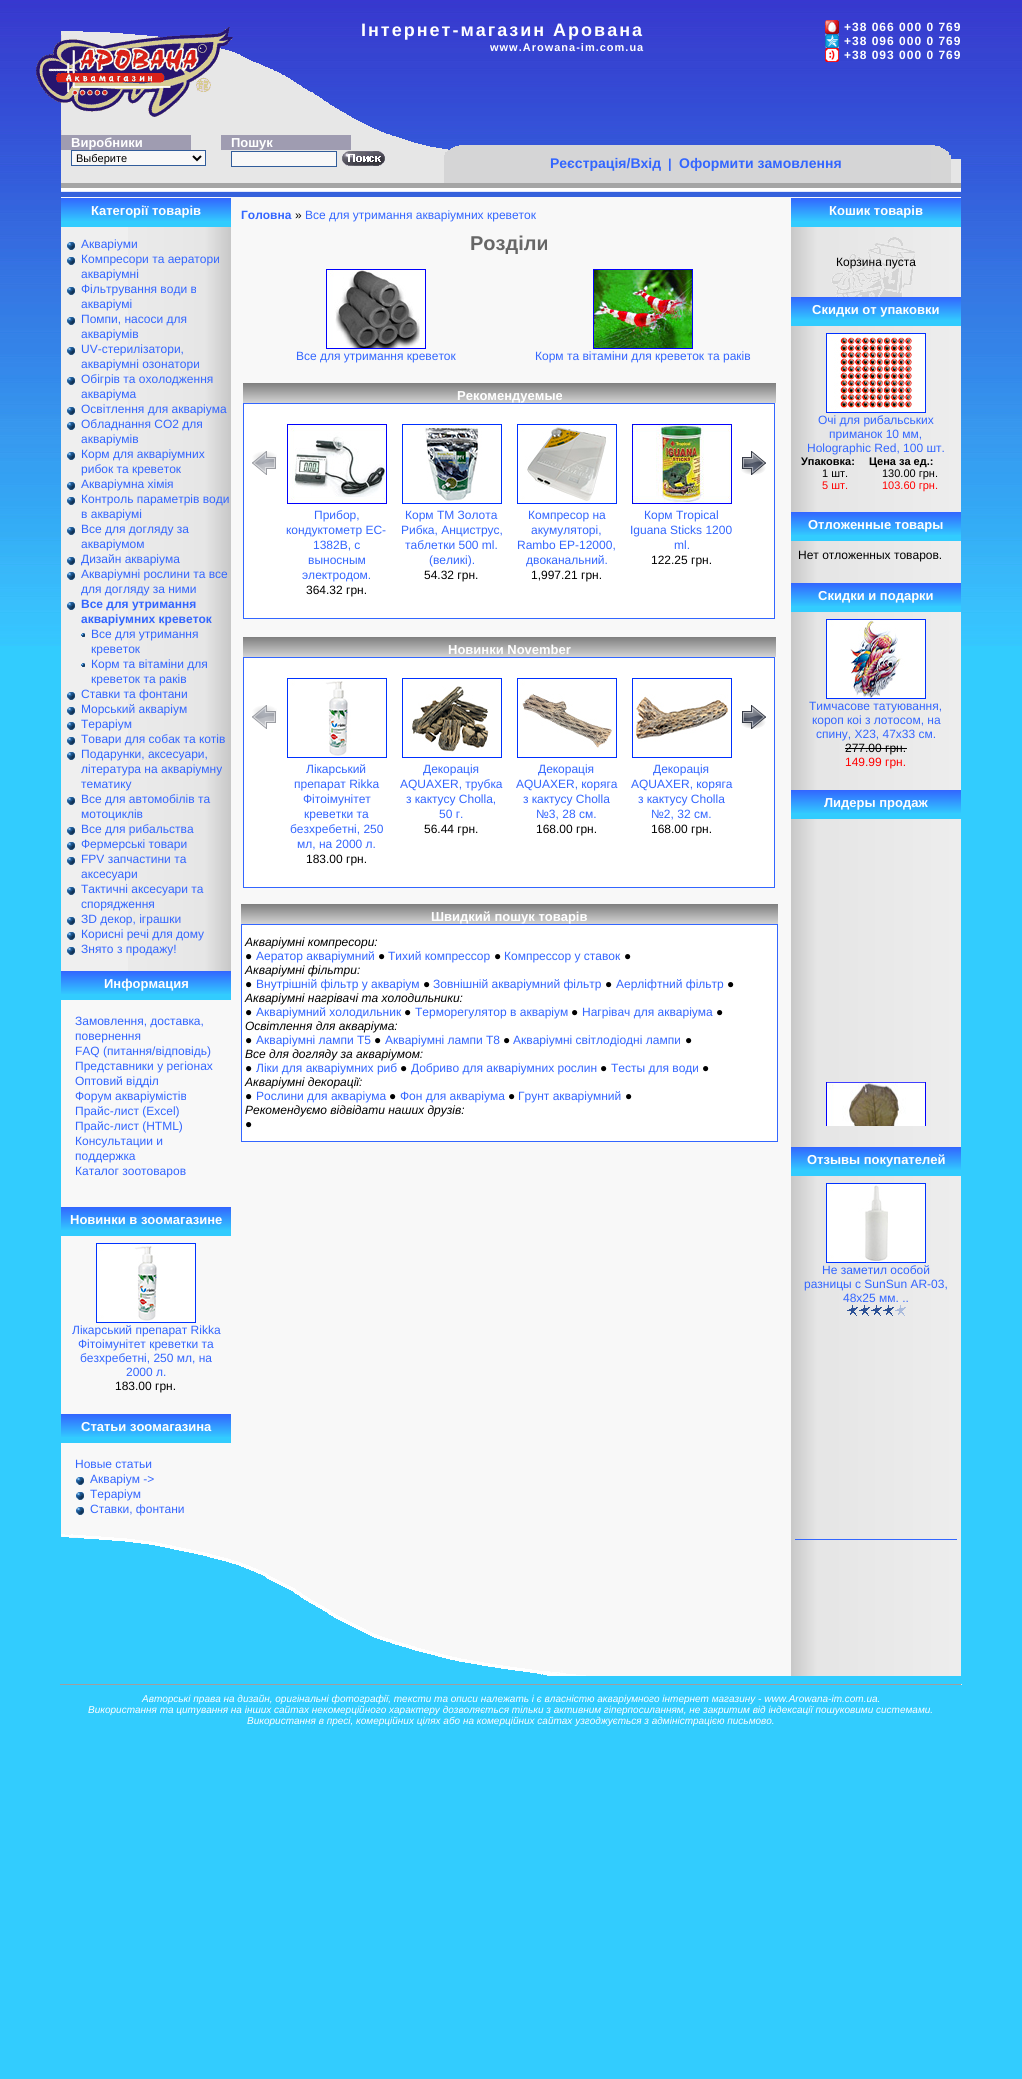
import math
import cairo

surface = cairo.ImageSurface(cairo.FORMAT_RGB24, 1022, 2079)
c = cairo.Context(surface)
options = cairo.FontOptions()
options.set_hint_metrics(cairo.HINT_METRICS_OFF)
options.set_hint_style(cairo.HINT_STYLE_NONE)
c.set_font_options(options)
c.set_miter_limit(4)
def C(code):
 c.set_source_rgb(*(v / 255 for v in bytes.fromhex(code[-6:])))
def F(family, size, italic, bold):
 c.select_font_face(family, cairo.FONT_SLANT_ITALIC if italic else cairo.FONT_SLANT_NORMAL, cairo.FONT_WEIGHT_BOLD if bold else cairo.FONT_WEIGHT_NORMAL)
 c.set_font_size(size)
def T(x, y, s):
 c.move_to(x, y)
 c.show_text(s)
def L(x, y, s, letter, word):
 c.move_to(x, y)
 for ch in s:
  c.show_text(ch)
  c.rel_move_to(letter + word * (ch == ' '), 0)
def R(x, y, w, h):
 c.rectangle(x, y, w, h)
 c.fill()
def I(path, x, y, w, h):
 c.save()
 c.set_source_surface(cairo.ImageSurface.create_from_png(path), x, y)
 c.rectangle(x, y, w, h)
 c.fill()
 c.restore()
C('32ccfe')
c.paint()
I('1.png',0,0,1022,646)
I('2.png',36,27,354,108)
F('Liberation Sans',18,0,1)
C('ffffff')
L(361,36,'Інтернет-магазин Арована',2,0)
F('Liberation Sans',11,0,1)
L(490,51,'www.Arowana-im.com.ua',1,0)
I('3.png',825,20,14,14)
F('Liberation Sans',12,0,1)
L(844,31,'+38 066 000 0 769',1,0)
I('4.png',825,34,14,14)
L(844,45,'+38 096 000 0 769',1,0)
I('5.png',825,48,14,14)
L(844,59,'+38 093 000 0 769',1,0)
C('e7e7e7')
R(61,135,329,48)
C('9f9cb1')
R(61,135,130,15)
F('Liberation Sans',13,0,1)
C('ffffff')
T(71,147,'Виробники')
C('f8f8f8')
c.rectangle(71.5,150.5,134,15)
c.fill_preserve()
C('315d9b')
c.set_line_width(1)
c.stroke()
c.new_path()
c.move_to(193,156)
c.line_to(197,160)
c.line_to(201,156)
C('000000')
c.set_line_width(2)
c.stroke()
F('Liberation Sans',11,0,0)
T(76,162,'Выберите')
C('9f9cb1')
R(221,135,130,15)
F('Liberation Sans',13,0,1)
C('ffffff')
T(231,147,'Пошук')
C('f8f8f8')
c.rectangle(231.5,151.5,105,15)
c.fill_preserve()
C('315d9b')
c.set_line_width(1)
c.stroke()
I('6.png',342,151,43,15)
I('7.png',390,135,71,48)
C('d5d5d6')
R(461,145,470,38)
F('Liberation Sans',14,0,1)
C('3366ff')
T(550,168,'Реєстрація/Вхід')
F('Liberation Sans',13,0,1)
T(668,168,'|')
F('Liberation Sans',14,0,1)
T(679,168,'Оформити замовлення')
I('8.png',931,145,30,38)
I('9.png',61,183,900,9)
C('f8f8f8')
R(61,197,900,1334)
I('10.png',791,227,170,1304)
C('32ccfe')
R(61,221,170,6)
I('11.png',61,198,170,23)
F('Liberation Sans',13,0,1)
C('ffffff')
T(91,215,'Категорії товарів')
C('efefef')
R(61,227,67,744)
I('12.png',128,227,103,744)
I('13.png',67,242,8,8)
F('Liberation Sans',12,0,0)
C('3366ff')
T(81,248,'Акваріуми')
I('13.png',67,257,8,8)
T(81,263,'Компресори та аератори')
T(81,278,'акваріумні')
I('13.png',67,287,8,8)
T(81,293,'Фільтрування води в')
T(81,308,'акваріумі')
I('13.png',67,317,8,8)
T(81,323,'Помпи, насоси для')
T(81,338,'акваріумів')
I('13.png',67,347,8,8)
T(81,353,'UV-стерилізатори,')
T(81,368,'акваріумні озонатори')
I('13.png',67,377,8,8)
T(81,383,'Обігрів та охолодження')
T(81,398,'акваріума')
I('13.png',67,407,8,8)
T(81,413,'Освітлення для акваріума')
I('13.png',67,422,8,8)
T(81,428,'Обладнання CO2 для')
T(81,443,'акваріумів')
I('13.png',67,452,8,8)
T(81,458,'Корм для акваріумних')
T(81,473,'рибок та креветок')
I('13.png',67,482,8,8)
T(81,488,'Акваріумна хімія')
I('13.png',67,497,8,8)
T(81,503,'Контроль параметрів води')
T(81,518,'в акваріумі')
I('13.png',67,527,8,8)
T(81,533,'Все для догляду за')
T(81,548,'акваріумом')
I('13.png',67,557,8,8)
T(81,563,'Дизайн акваріума')
I('13.png',67,572,8,8)
T(81,578,'Акваріумні рослини та все')
T(81,593,'для догляду за ними')
I('13.png',67,602,8,8)
F('Liberation Sans',12,0,1)
T(81,608,'Все для утримання')
T(81,623,'акваріумних креветок')
I('14.png',81,633,4,4)
F('Liberation Sans',12,0,0)
T(91,638,'Все для утримання')
T(91,653,'креветок')
I('14.png',81,663,4,4)
T(91,668,'Корм та вітаміни для')
T(91,683,'креветок та раків')
I('13.png',67,692,8,8)
T(81,698,'Ставки та фонтани')
I('13.png',67,707,8,8)
T(81,713,'Морський акваріум')
I('13.png',67,722,8,8)
T(81,728,'Тераріум')
I('13.png',67,737,8,8)
T(81,743,'Товари для собак та котів')
I('13.png',67,752,8,8)
T(81,758,'Подарунки, аксесуари,')
T(81,773,'література на акваріумну')
T(81,788,'тематику')
I('13.png',67,797,8,8)
T(81,803,'Все для автомобілів та')
T(81,818,'мотоциклів')
I('13.png',67,827,8,8)
T(81,833,'Все для рибальства')
I('13.png',67,842,8,8)
T(81,848,'Фермерські товари')
I('13.png',67,857,8,8)
T(81,863,'FPV запчастини та')
T(81,878,'аксесуари')
I('13.png',67,887,8,8)
T(81,893,'Тактичні аксесуари та')
T(81,908,'спорядження')
I('13.png',67,917,8,8)
T(81,923,'ЗD декор, іграшки')
I('13.png',67,932,8,8)
T(81,938,'Корисні речі для дому')
I('13.png',67,947,8,8)
T(81,953,'Знято з продажу!')
C('32ccfe')
R(61,994,170,6)
I('11.png',61,971,170,23)
F('Liberation Sans',13,0,1)
C('ffffff')
T(104,988,'Информация')
F('Liberation Sans',12,0,0)
C('3366ff')
T(75,1025,'Замовлення, доставка,')
T(75,1040,'повернення')
T(75,1055,'FAQ (питання/відповідь)')
T(75,1070,'Представники у регіонах')
T(75,1085,'Оптовий відділ')
T(75,1100,'Форум акваріумістів')
T(75,1115,'Прайс-лист (Excel)')
T(75,1130,'Прайс-лист (HTML)')
T(75,1145,'Консультации и')
T(75,1160,'поддержка')
T(75,1175,'Каталог зоотоваров')
C('32ccfe')
R(61,1230,170,6)
I('11.png',61,1207,170,23)
F('Liberation Sans',13,0,1)
C('ffffff')
T(70,1224,'Новинки в зоомагазине')
I('15.png',96,1243,100,80)
F('Liberation Sans',12,0,0)
C('3366ff')
T(72,1334,'Лікарський препарат Rikka')
T(78,1348,'Фітоімунітет креветки та')
T(80,1362,'безхребетні, 250 мл, на')
T(126,1376,'2000 л.')
C('000000')
T(115,1390,'183.00 грн.')
C('32ccfe')
R(61,1437,170,6)
I('11.png',61,1414,170,23)
F('Liberation Sans',13,0,1)
C('ffffff')
T(81,1431,'Статьи зоомагазина')
F('Liberation Sans',12,0,0)
C('3366ff')
T(75,1468,'Новые статьи')
I('16.png',76,1477,8,8)
T(90,1483,'Акваріум ->')
I('16.png',76,1492,8,8)
T(90,1498,'Тераріум')
I('16.png',76,1507,8,8)
T(90,1513,'Ставки, фонтани')
F('Liberation Sans',12,0,1)
T(241,219,'Головна')
F('Liberation Sans',12,0,0)
C('000000')
T(295,219,'»')
C('3366ff')
T(305,219,'Все для утримання акваріумних креветок')
F('Liberation Sans',20,0,1)
C('666666')
T(470,250,'Розділи')
I('17.png',326,269,100,80)
F('Liberation Sans',12,0,0)
C('3366ff')
T(296,360,'Все для утримання креветок')
I('18.png',593,269,100,80)
T(535,360,'Корм та вітаміни для креветок та раків')
I('19.png',243,383,533,20)
F('Liberation Sans',13,0,1)
C('ffffff')
T(457,400,'Рекомендуемые')
c.rectangle(243.5,403.5,531,215)
c.fill_preserve()
C('3366ff')
c.stroke()
I('20.png',252,451,25,24)
I('21.png',741,451,25,24)
I('22.png',287,424,100,80)
F('Liberation Sans',12,0,0)
T(314,519,'Прибор,')
T(286,534,'кондуктометр EC-')
T(313,549,'1382B, с')
T(308,564,'выносным')
T(302,579,'электродом.')
C('000000')
T(306,594,'364.32 грн.')
I('23.png',402,424,100,80)
C('3366ff')
T(405,519,'Корм ТМ Золота')
T(401,534,'Рибка, Анциструс,')
T(405,549,'таблетки 500 ml.')
T(429,564,'(великі).')
C('000000')
T(424,579,'54.32 грн.')
I('24.png',517,424,100,80)
C('3366ff')
T(528,519,'Компресор на')
T(531,534,'акумуляторі,')
T(517,549,'Rambo EP-12000,')
T(526,564,'двоканальний.')
C('000000')
T(531,579,'1,997.21 грн.')
I('25.png',632,424,100,80)
C('3366ff')
T(644,519,'Корм Tropical')
T(630,534,'Iguana Sticks 1200')
T(674,549,'ml.')
C('000000')
T(651,564,'122.25 грн.')
I('19.png',243,637,533,20)
F('Liberation Sans',13,0,1)
C('ffffff')
T(448,654,'Новинки November')
c.rectangle(243.5,657.5,531,230)
c.fill_preserve()
C('3366ff')
c.stroke()
I('20.png',252,705,25,24)
I('21.png',741,705,25,24)
I('15.png',287,678,100,80)
F('Liberation Sans',12,0,0)
T(306,773,'Лікарський')
T(294,788,'препарат Rikka')
T(303,803,'Фітоімунітет')
T(304,818,'креветки та')
T(290,833,'безхребетні, 250')
T(297,848,'мл, на 2000 л.')
C('000000')
T(306,863,'183.00 грн.')
I('26.png',402,678,100,80)
C('3366ff')
T(423,773,'Декорація')
T(400,788,'AQUAXER, трубка')
T(406,803,'з кактусу Cholla,')
T(439,818,'50 г.')
C('000000')
T(424,833,'56.44 грн.')
I('27.png',517,678,100,80)
C('3366ff')
T(538,773,'Декорація')
T(516,788,'AQUAXER, коряга')
T(523,803,'з кактусу Cholla')
T(536,818,'№3, 28 см.')
C('000000')
T(536,833,'168.00 грн.')
I('28.png',632,678,100,80)
C('3366ff')
T(653,773,'Декорація')
T(631,788,'AQUAXER, коряга')
T(638,803,'з кактусу Cholla')
T(651,818,'№2, 32 см.')
C('000000')
T(651,833,'168.00 грн.')
I('29.png',241,904,537,20)
F('Liberation Sans',13,0,1)
C('ffffff')
T(431,921,'Швидкий пошук товарів')
C('3366ff')
R(241,924,537,218)
C('ffffff')
R(242,925,535,216)
F('Liberation Sans',12,1,0)
C('000000')
T(245,946,'Акваріумні компресори:')
F('Liberation Sans',12,0,0)
T(245,960,'●')
C('3366ff')
T(256,960,'Аератор акваріумний')
C('000000')
T(378,960,'●')
C('3366ff')
T(388,960,'Тихий компрессор')
C('000000')
T(494,960,'●')
C('3366ff')
T(504,960,'Компрессор у ставок')
C('000000')
T(624,960,'●')
F('Liberation Sans',12,1,0)
T(245,974,'Акваріумні фільтри:')
F('Liberation Sans',12,0,0)
T(245,988,'●')
C('3366ff')
T(256,988,'Внутрішній фільтр у акваріум')
C('000000')
T(423,988,'●')
C('3366ff')
T(433,988,'Зовнішній акваріумний фільтр')
C('000000')
T(605,988,'●')
C('3366ff')
T(616,988,'Аерліфтний фільтр')
C('000000')
T(727,988,'●')
F('Liberation Sans',12,1,0)
T(245,1002,'Акваріумні нагрівачі та холодильники:')
F('Liberation Sans',12,0,0)
T(245,1016,'●')
C('3366ff')
T(256,1016,'Акваріумний холодильник')
C('000000')
T(404,1016,'●')
C('3366ff')
T(415,1016,'Терморегулятор в акваріум')
C('000000')
T(571,1016,'●')
C('3366ff')
T(582,1016,'Нагрівач для акваріума')
C('000000')
T(716,1016,'●')
F('Liberation Sans',12,1,0)
T(245,1030,'Освітлення для акваріума:')
F('Liberation Sans',12,0,0)
T(245,1044,'●')
C('3366ff')
T(256,1044,'Акваріумні лампи Т5')
C('000000')
T(374,1044,'●')
C('3366ff')
T(385,1044,'Акваріумні лампи Т8')
C('000000')
T(503,1044,'●')
C('3366ff')
T(513,1044,'Акваріумні світлодіодні лампи')
C('000000')
T(685,1044,'●')
F('Liberation Sans',12,1,0)
T(245,1058,'Все для догляду за акваріумом:')
F('Liberation Sans',12,0,0)
T(245,1072,'●')
C('3366ff')
T(256,1072,'Ліки для акваріумних риб')
C('000000')
T(400,1072,'●')
C('3366ff')
T(411,1072,'Добриво для акваріумних рослин')
C('000000')
T(600,1072,'●')
C('3366ff')
T(611,1072,'Тесты для води')
C('000000')
T(702,1072,'●')
F('Liberation Sans',12,1,0)
T(245,1086,'Акваріумні декорації:')
F('Liberation Sans',12,0,0)
T(245,1100,'●')
C('3366ff')
T(256,1100,'Рослини для акваріума')
C('000000')
T(389,1100,'●')
C('3366ff')
T(400,1100,'Фон для акваріума')
C('000000')
T(508,1100,'●')
C('3366ff')
T(518,1100,'Грунт акваріумний')
C('000000')
T(625,1100,'●')
F('Liberation Sans',12,1,0)
T(245,1114,'Рекомендуємо відвідати наших друзів:')
F('Liberation Sans',12,0,0)
T(245,1128,'●')
C('32ccfe')
R(791,221,170,6)
I('11.png',791,198,170,23)
F('Liberation Sans',13,0,1)
C('ffffff')
T(829,215,'Кошик товарів')
I('30.png',831,237,84,60)
F('Liberation Sans',12,0,0)
C('000000')
T(836,266,'Корзина пуста')
C('32ccfe')
R(791,320,170,6)
I('11.png',791,297,170,23)
F('Liberation Sans',13,0,1)
C('ffffff')
T(812,314,'Скидки от упаковки')
I('31.png',826,333,100,80)
F('Liberation Sans',12,0,0)
C('3366ff')
T(818,424,'Очі для рибальських')
T(829,438,'приманок 10 мм,')
T(807,452,'Holographic Red, 100 шт.')
F('Liberation Sans',11,0,1)
C('000000')
T(801,465,'Упаковка:')
T(869,465,'Цена за ед.:')
F('Liberation Sans',11,0,0)
T(822,477,'1 шт.')
T(882,477,'130.00 грн.')
C('ff0000')
T(822,489,'5 шт.')
T(882,489,'103.60 грн.')
C('32ccfe')
R(791,535,170,6)
I('11.png',791,512,170,23)
F('Liberation Sans',13,0,1)
C('ffffff')
T(808,529,'Отложенные товары')
F('Liberation Sans',12,0,0)
C('000000')
T(798,559,'Нет отложенных товаров.')
C('32ccfe')
R(791,606,170,6)
I('11.png',791,583,170,23)
F('Liberation Sans',13,0,1)
C('ffffff')
T(818,600,'Скидки и подарки')
I('32.png',826,619,100,80)
F('Liberation Sans',12,0,0)
C('3366ff')
T(809,710,'Тимчасове татуювання,')
T(812,724,'короп коі з лотосом, на')
T(816,738,'спину, X23, 47х33 см.')
C('000000')
T(845,752,'277.00 грн.')
R(845,748,62,1)
C('ff0000')
T(845,766,'149.99 грн.')
C('32ccfe')
R(791,813,170,6)
I('11.png',791,790,170,23)
F('Liberation Sans',13,0,1)
C('ffffff')
T(824,807,'Лидеры продаж')
I('33.png',826,1082,100,44)
C('32ccfe')
R(791,1170,170,6)
I('11.png',791,1147,170,23)
C('ffffff')
T(807,1164,'Отзывы покупателей')
I('34.png',826,1183,100,80)
F('Liberation Sans',12,0,0)
C('3366ff')
T(822,1274,'Не заметил особой')
T(804,1288,'разницы с SunSun AR-03,')
T(843,1302,'48х25 мм. ..')
I('35.png',847,1305,59,11)
I('36.png',61,1531,730,145)
I('37.png',791,1531,170,145)
R(795,1539,162,1)
C('9f9f9f')
R(60,1684,902,1)
C('eeeeee')
R(961,1684,1,1)
F('Liberation Sans',10,1,0)
C('ffffff')
T(142,1702,'Авторські права на дизайн, оригінальні фотографії, тексти та описи належать і є власністю акваріумного інтернет магазину - www.Arowana-im.com.ua.')
T(88,1713,'Використання та цитування на інших сайтах некомерційного характеру дозволяється тільки з активним гіперпосиланням, не закритим від індексації пошуковими системами.')
T(247,1724,'Використання в пресі, комерційних цілях або на комерційних сайтах узгоджується з адміністрацією письмово.')
surface.write_to_png('o.png')
